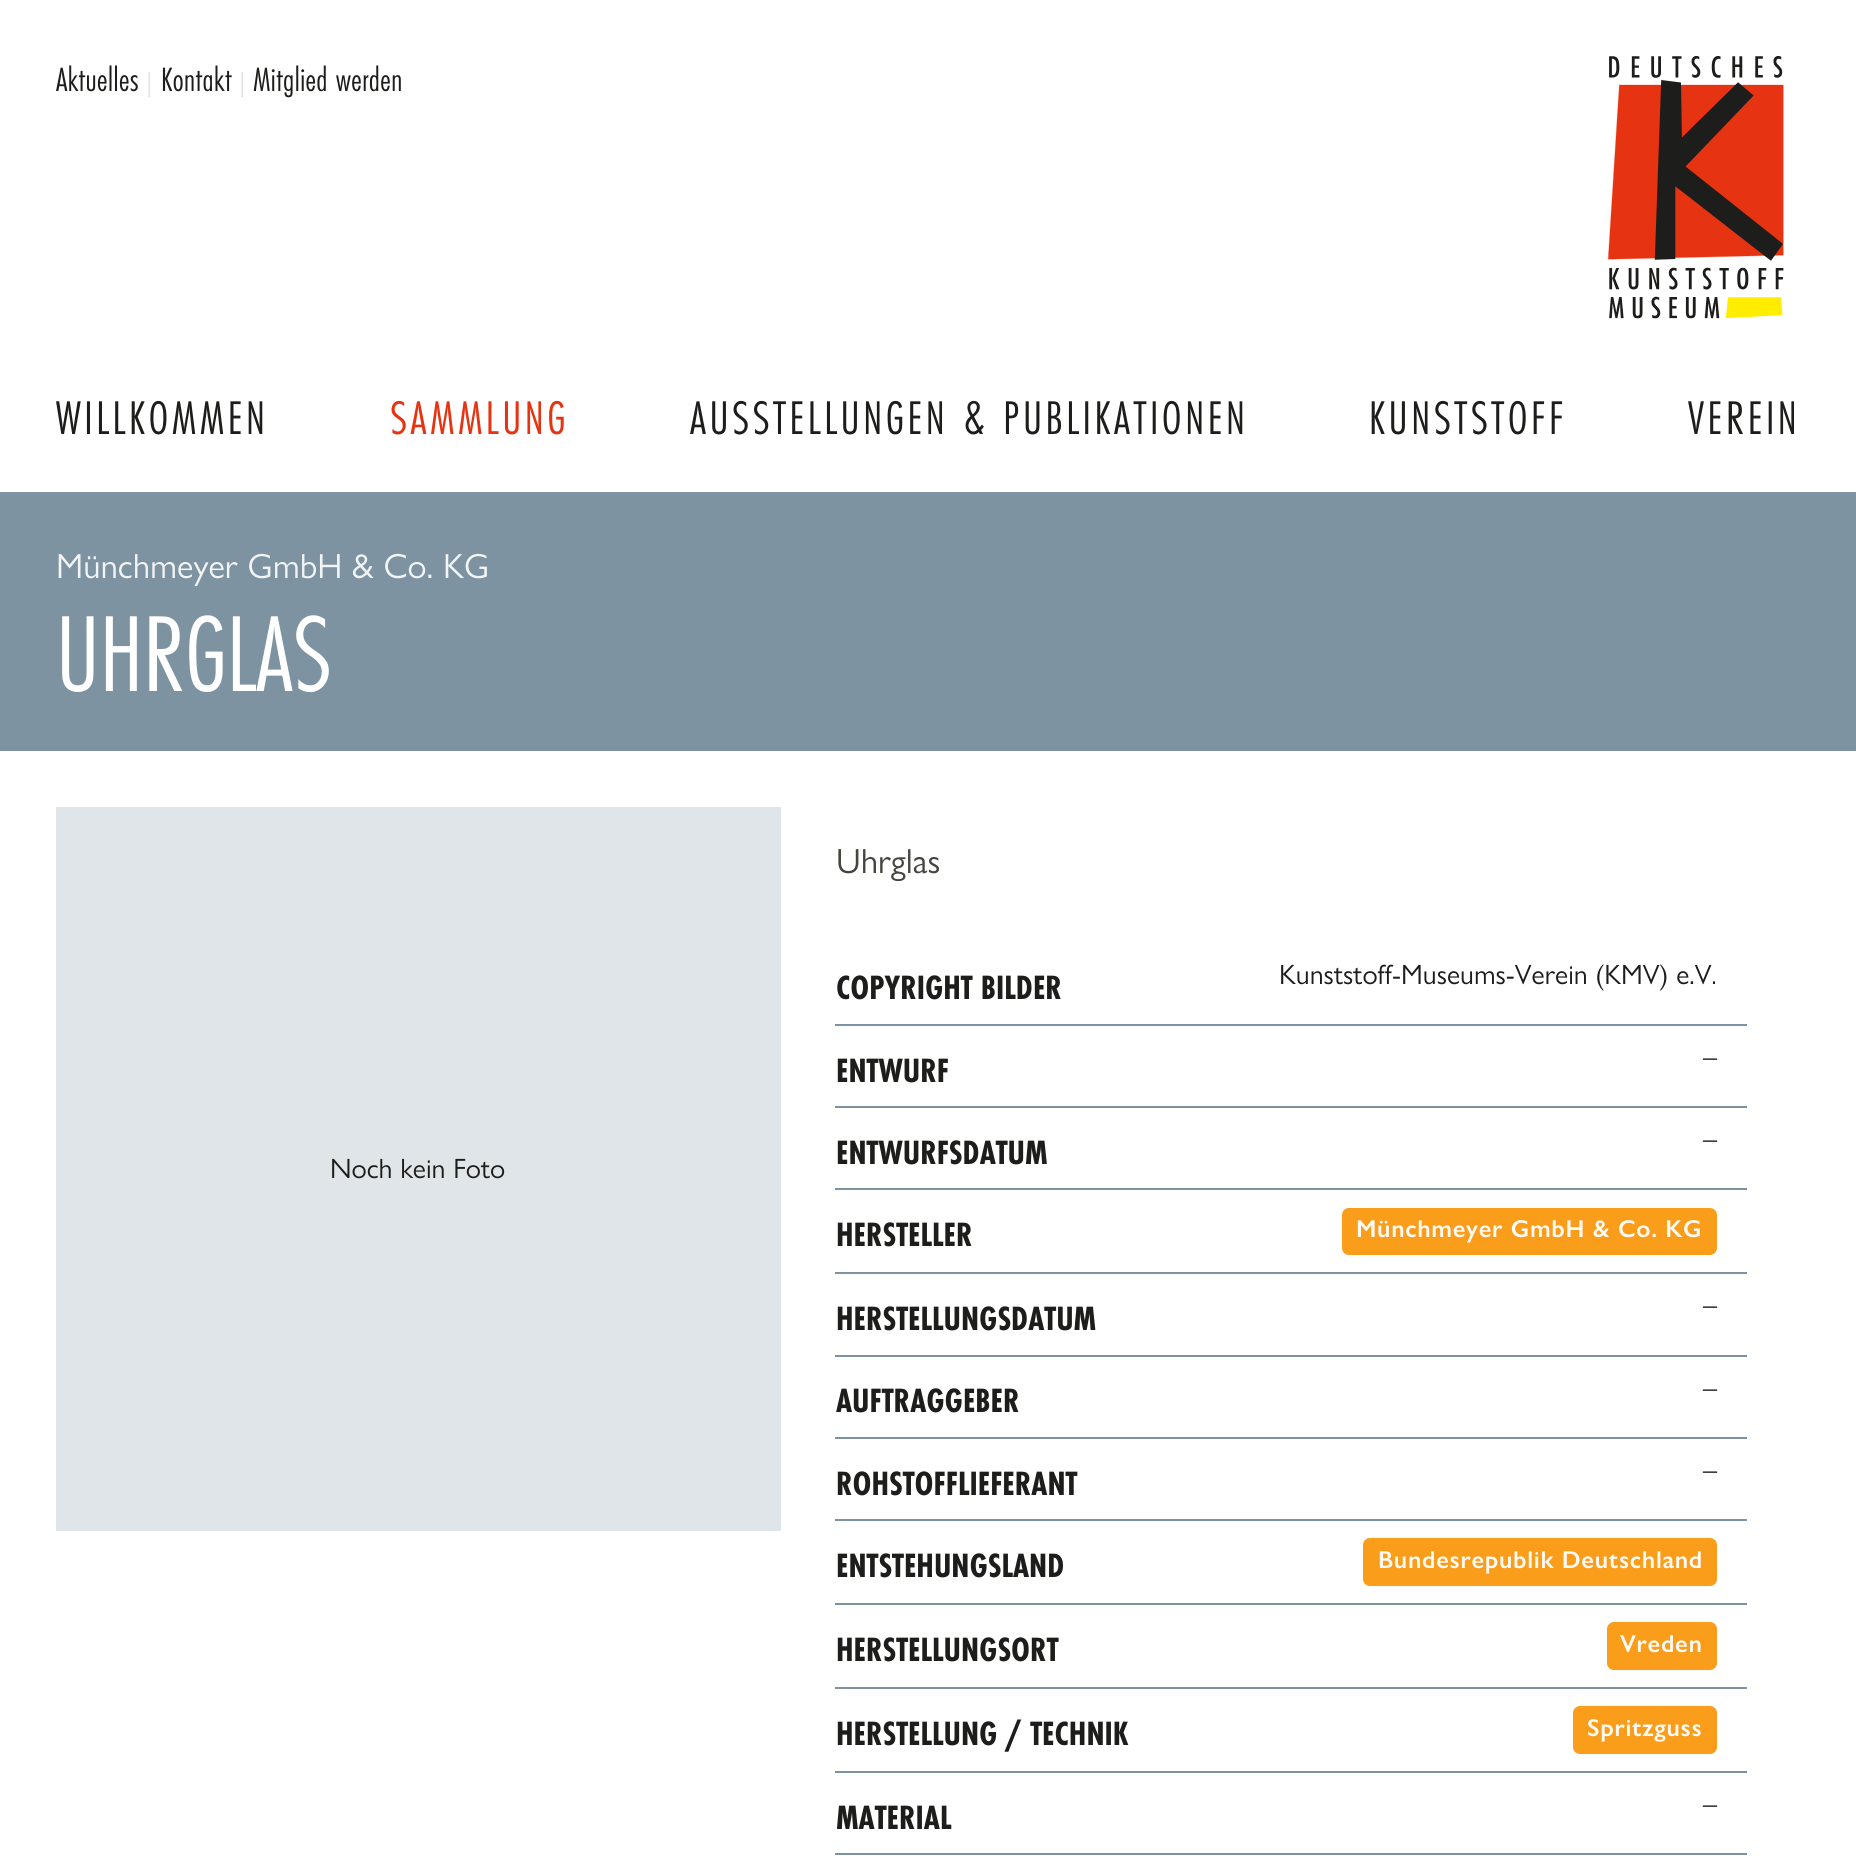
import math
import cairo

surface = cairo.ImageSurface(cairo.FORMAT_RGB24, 1856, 1875)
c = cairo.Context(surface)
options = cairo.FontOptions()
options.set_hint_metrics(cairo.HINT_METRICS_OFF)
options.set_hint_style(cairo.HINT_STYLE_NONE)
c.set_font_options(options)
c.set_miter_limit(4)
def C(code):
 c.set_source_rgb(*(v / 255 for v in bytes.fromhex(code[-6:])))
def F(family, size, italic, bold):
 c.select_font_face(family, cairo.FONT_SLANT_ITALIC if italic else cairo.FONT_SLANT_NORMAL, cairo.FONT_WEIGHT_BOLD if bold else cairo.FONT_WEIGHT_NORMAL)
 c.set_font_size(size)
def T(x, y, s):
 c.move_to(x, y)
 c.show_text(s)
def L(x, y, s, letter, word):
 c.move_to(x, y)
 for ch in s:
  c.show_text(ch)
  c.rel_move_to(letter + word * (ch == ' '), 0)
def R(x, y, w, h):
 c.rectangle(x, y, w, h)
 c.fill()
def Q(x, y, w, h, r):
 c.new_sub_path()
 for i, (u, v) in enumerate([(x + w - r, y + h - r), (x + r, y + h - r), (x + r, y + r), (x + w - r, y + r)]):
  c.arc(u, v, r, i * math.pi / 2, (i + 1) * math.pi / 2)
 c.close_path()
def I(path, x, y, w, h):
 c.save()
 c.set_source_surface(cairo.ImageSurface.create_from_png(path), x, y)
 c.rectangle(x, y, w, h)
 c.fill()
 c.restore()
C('ffffff')
c.paint()
F('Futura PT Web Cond',35,0,0)
C('1d1d1b')
T(56,91,'Aktuelles')
F('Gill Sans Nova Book',28,0,0)
C('e3e3e3')
T(146,91,'|')
F('Futura PT Web Cond',35,0,0)
C('1d1d1b')
T(161,91,'Kontakt')
F('Gill Sans Nova Book',28,0,0)
C('e3e3e3')
T(239,91,'|')
F('Futura PT Web Cond',35,0,0)
C('1d1d1b')
T(253,91,'Mitglied werden')
I('1.png',1607,56,177,263)
F('Futura PT Web Cond',49,0,0)
L(56,434,'WILLKOMMEN',3.5,0)
C('e63312')
L(390,434,'SAMMLUNG',3.5,0)
C('1d1d1b')
L(690,434,'AUSSTELLUNGEN & PUBLIKATIONEN',3.5,0)
L(1369,434,'KUNSTSTOFF',3.5,0)
L(1688,434,'VEREIN',3.5,0)
C('7d93a1')
R(0,492,1856,259)
F('Gill Sans Nova Book',35,0,0)
C('f2f4f6')
T(56,578,'Münchmeyer GmbH & Co. KG')
F('Futura PT Web Cond',112,0,0)
C('ffffff')
T(56,691,'UHRGLAS')
C('dfe5e8')
R(56,807,725,724)
F('Gill Sans Nova Book',28,0,0)
C('1d1d1b')
T(330,1178,'Noch kein Foto')
F('Gill Sans Nova Book',35,0,0)
C('454540')
T(836,873,'Uhrglas')
F('Futura PT Web Cond',35,0,1)
C('1d1d1b')
T(836,999,'COPYRIGHT BILDER')
C('7d93a1')
R(835,1024,912,2)
F('Gill Sans Nova Book',28,0,0)
C('1d1d1b')
T(1279,984,'Kunststoff-Museums-Verein (KMV) e.V.')
F('Futura PT Web Cond',35,0,1)
T(836,1082,'ENTWURF')
C('7d93a1')
R(835,1106,912,2)
F('Gill Sans Nova Book',28,0,0)
C('1d1d1b')
T(1703,1066,'–')
F('Futura PT Web Cond',35,0,1)
T(836,1164,'ENTWURFSDATUM')
C('7d93a1')
R(835,1188,912,2)
F('Gill Sans Nova Book',28,0,0)
C('1d1d1b')
T(1703,1148,'–')
F('Futura PT Web Cond',35,0,1)
T(836,1246,'HERSTELLER')
C('7d93a1')
R(835,1272,912,2)
C('f99d1b')
Q(1342,1208,375,47,7)
c.fill()
F('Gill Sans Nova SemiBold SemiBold',24.5,0,0)
C('fffaf4')
L(1356,1237,'Münchmeyer GmbH & Co. KG',.7,0)
F('Futura PT Web Cond',35,0,1)
C('1d1d1b')
T(836,1330,'HERSTELLUNGSDATUM')
C('7d93a1')
R(835,1355,912,2)
F('Gill Sans Nova Book',28,0,0)
C('1d1d1b')
T(1703,1314,'–')
F('Futura PT Web Cond',35,0,1)
T(836,1412,'AUFTRAGGEBER')
C('7d93a1')
R(835,1437,912,2)
F('Gill Sans Nova Book',28,0,0)
C('1d1d1b')
T(1703,1397,'–')
F('Futura PT Web Cond',35,0,1)
T(836,1495,'ROHSTOFFLIEFERANT')
C('7d93a1')
R(835,1519,912,2)
F('Gill Sans Nova Book',28,0,0)
C('1d1d1b')
T(1703,1479,'–')
F('Futura PT Web Cond',35,0,1)
T(836,1577,'ENTSTEHUNGSLAND')
C('7d93a1')
R(835,1603,912,2)
C('f99d1b')
Q(1363,1538,354,48,7)
c.fill()
F('Gill Sans Nova SemiBold SemiBold',24.5,0,0)
C('fffaf4')
L(1378,1568,'Bundesrepublik Deutschland',.7,0)
F('Futura PT Web Cond',35,0,1)
C('1d1d1b')
T(836,1661,'HERSTELLUNGSORT')
C('7d93a1')
R(835,1687,912,2)
C('f99d1b')
Q(1607,1622,110,48,7)
c.fill()
F('Gill Sans Nova SemiBold SemiBold',24.5,0,0)
C('fffaf4')
L(1620,1652,'Vreden',.7,0)
F('Futura PT Web Cond',35,0,1)
C('1d1d1b')
T(836,1745,'HERSTELLUNG / TECHNIK')
C('7d93a1')
R(835,1771,912,2)
C('f99d1b')
Q(1573,1706,144,48,7)
c.fill()
F('Gill Sans Nova SemiBold SemiBold',24.5,0,0)
C('fffaf4')
L(1587,1736,'Spritzguss',.7,0)
F('Futura PT Web Cond',35,0,1)
C('1d1d1b')
T(836,1829,'MATERIAL')
C('7d93a1')
R(835,1853,912,2)
F('Gill Sans Nova Book',28,0,0)
C('1d1d1b')
T(1703,1813,'–')
surface.write_to_png('o.png')
